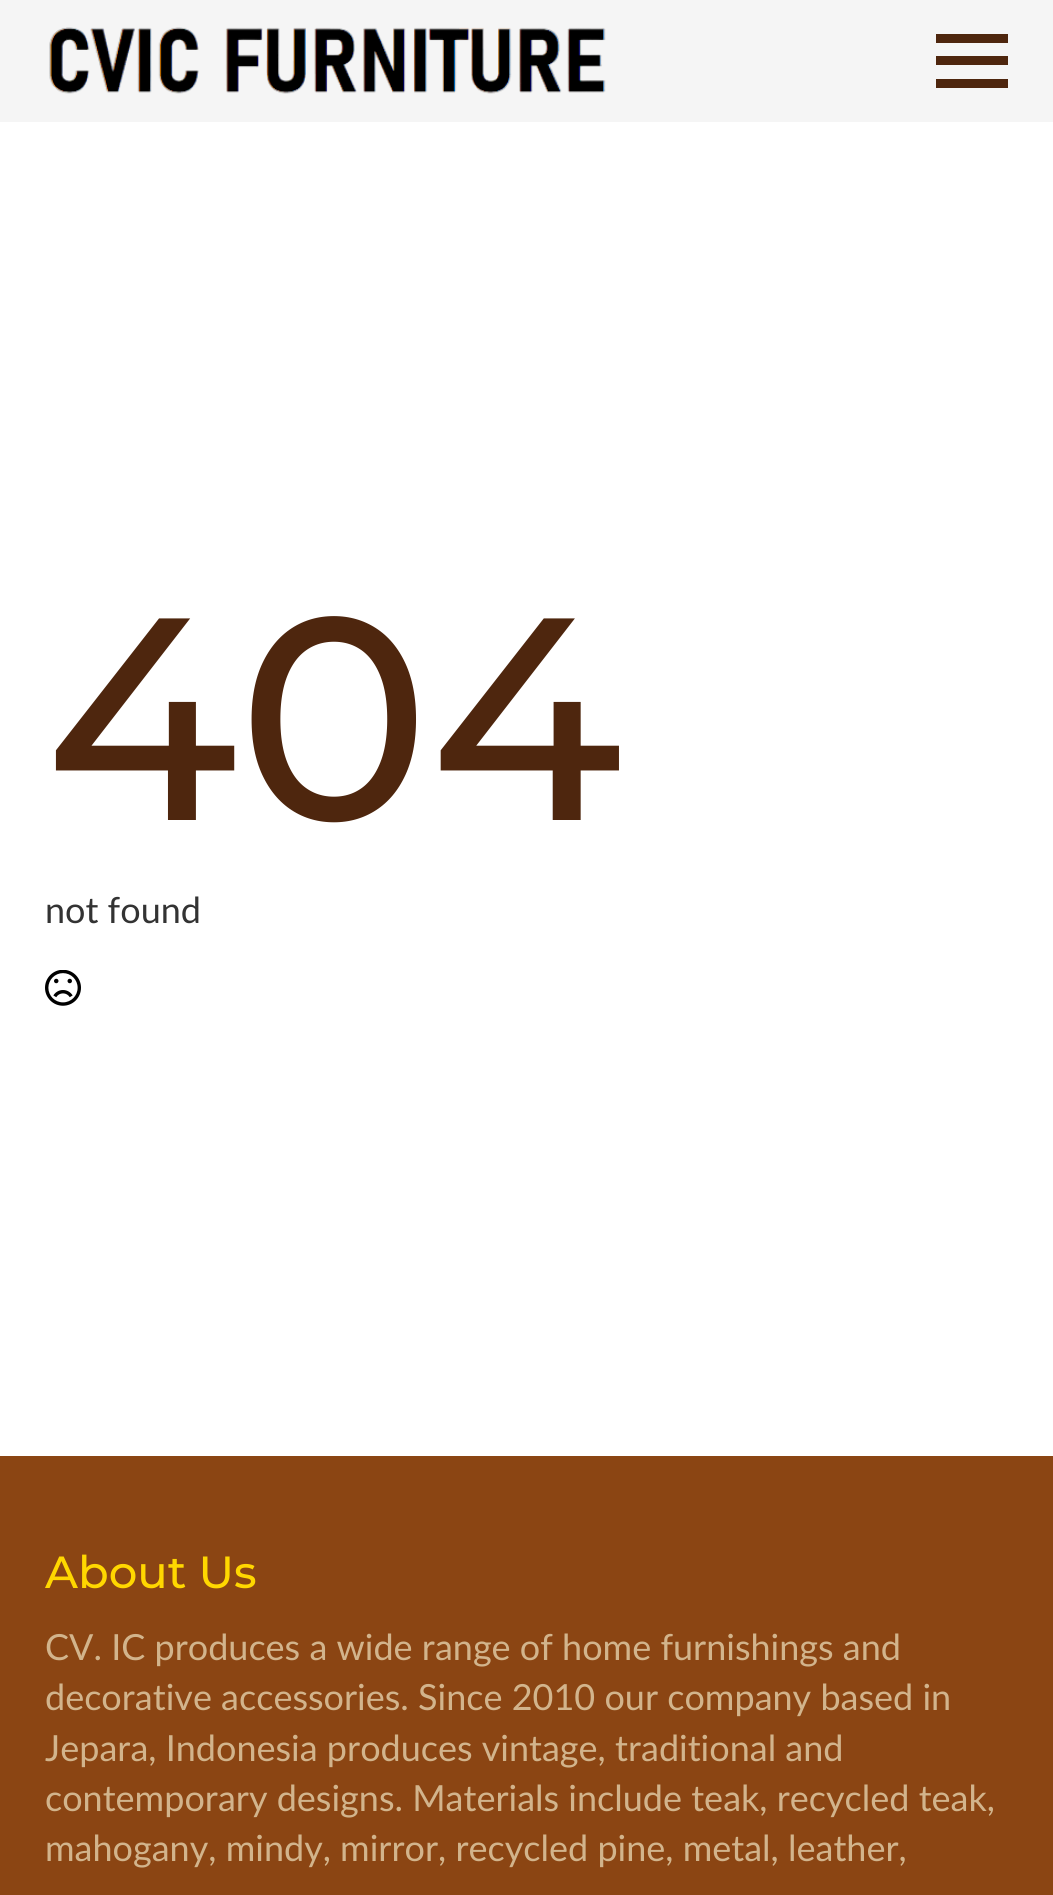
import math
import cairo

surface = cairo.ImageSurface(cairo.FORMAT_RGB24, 1053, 1895)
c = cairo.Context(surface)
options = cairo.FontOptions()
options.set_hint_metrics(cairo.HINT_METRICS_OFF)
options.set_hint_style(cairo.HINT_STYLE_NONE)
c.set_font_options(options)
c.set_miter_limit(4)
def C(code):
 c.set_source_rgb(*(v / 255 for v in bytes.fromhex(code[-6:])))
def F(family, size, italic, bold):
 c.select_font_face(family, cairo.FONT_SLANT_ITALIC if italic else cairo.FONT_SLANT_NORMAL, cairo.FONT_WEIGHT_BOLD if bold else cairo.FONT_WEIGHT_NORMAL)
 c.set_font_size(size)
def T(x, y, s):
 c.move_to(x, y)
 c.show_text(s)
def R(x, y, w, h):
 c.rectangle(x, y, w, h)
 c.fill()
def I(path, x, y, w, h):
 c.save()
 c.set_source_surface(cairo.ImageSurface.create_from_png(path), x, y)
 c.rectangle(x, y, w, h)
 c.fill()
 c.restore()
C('ffffff')
c.paint()
C('f5f5f5')
R(0,0,1053,122)
I('1.png',49,27,557,67)
C('4e260e')
R(936,56,72,9)
R(936,34,72,9)
R(936,79,72,9)
F('Montserrat Medium',288,0,0)
T(45,820,'404')
F('Lato',36,0,0)
C('333333')
T(45,923,'not found')
I('2.png',45,970,36,36)
C('8b4513')
R(0,1456,1053,439)
F('Montserrat Medium',45,0,0)
C('ffd700')
T(45,1588,'About Us')
F('Lato',36,0,0)
C('d2b48c')
T(45,1660,'CV. IC produces a wide range of home furnishings and')
T(45,1710,'decorative accessories. Since 2010 our company based in')
T(45,1761,'Jepara, Indonesia produces vintage, traditional and')
T(45,1811,'contemporary designs. Materials include teak, recycled teak,')
T(45,1861,'mahogany, mindy, mirror, recycled pine, metal, leather,')
surface.write_to_png('o.png')
